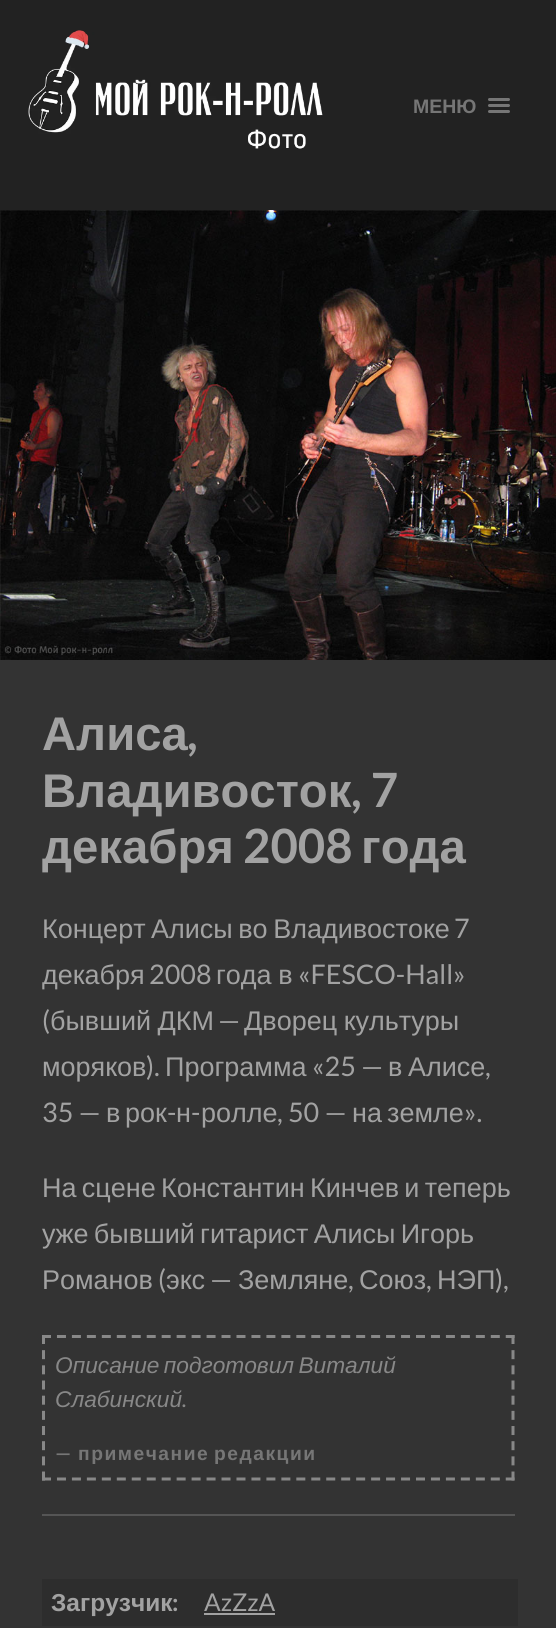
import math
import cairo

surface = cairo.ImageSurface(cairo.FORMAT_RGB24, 556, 1628)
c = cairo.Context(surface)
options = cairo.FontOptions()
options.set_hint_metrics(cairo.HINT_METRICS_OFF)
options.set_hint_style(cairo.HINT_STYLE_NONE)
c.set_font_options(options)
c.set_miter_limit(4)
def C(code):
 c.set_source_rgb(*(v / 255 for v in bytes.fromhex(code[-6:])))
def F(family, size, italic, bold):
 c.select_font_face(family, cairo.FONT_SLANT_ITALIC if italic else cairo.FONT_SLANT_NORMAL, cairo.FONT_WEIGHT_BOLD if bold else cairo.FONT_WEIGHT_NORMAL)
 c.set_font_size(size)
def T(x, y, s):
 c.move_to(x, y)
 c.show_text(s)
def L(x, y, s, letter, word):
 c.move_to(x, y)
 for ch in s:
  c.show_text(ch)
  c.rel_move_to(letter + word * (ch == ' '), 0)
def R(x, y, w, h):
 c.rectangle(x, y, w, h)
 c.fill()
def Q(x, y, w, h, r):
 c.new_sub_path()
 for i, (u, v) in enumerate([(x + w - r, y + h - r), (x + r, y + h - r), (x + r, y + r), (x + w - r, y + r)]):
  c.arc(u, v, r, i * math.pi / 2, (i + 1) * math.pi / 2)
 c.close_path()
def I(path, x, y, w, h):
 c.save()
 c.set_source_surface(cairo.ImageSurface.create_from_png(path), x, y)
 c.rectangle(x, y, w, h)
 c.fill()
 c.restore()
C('333333')
c.paint()
C('222222')
R(0,0,556,210)
I('1.png',28,30,295,119)
F('Liberation Sans',19.5,0,1)
C('767676')
T(413,113,'МЕНЮ')
Q(488,98,22,3,1.5)
c.fill()
Q(488,104,22,3,1.5)
c.fill()
Q(488,110,22,3,1.5)
c.fill()
I('2.png',0,210,556,450)
F('Liberation Sans',47.25,0,1)
C('a2a2a2')
T(42,750,'Алиса')
F('Lato',47.25,0,1)
T(187,750,',')
F('Liberation Sans',47.25,0,1)
T(42,807,'Владивосток')
F('Lato',47.25,0,1)
T(351,807,', 7')
F('Liberation Sans',47.25,0,1)
T(42,863,'декабря')
F('Lato',47.25,0,1)
T(243,863,'2008')
F('Liberation Sans',47.25,0,1)
T(361,863,'года')
F('Liberation Sans',27,0,0)
L(42,938,'Концерт Алисы во Владивостоке',0,-2)
F('Lato',27,0,0)
T(454,938,'7')
F('Liberation Sans',27,0,0)
T(42,984,'декабря')
F('Lato',27,0,0)
T(149,984,'2008')
F('Liberation Sans',27,0,0)
L(216,984,'года в',0,-1)
F('Lato',27,0,0)
T(298,984,'«FESCO-Hall»')
T(42,1030,'(')
F('Liberation Sans',27,0,0)
L(50,1030,'бывший ДКМ',0,-1)
F('Lato',27,0,0)
T(218,1030,'—')
F('Liberation Sans',27,0,0)
L(244,1030,'Дворец культуры',0,-1)
T(42,1076,'моряков')
F('Lato',27,0,0)
T(146,1076,').')
F('Liberation Sans',27,0,0)
T(165,1076,'Программа')
F('Lato',27,0,0)
T(312,1076,'«25 —')
F('Liberation Sans',27,0,0)
T(388,1076,'в')
T(408,1076,'Алисе')
F('Lato',27,0,0)
T(485,1076,',')
T(42,1122,'35 —')
F('Liberation Sans',27,0,0)
T(106,1122,'в')
T(125,1122,'рок')
F('Lato',27,0,0)
T(167,1122,'-')
F('Liberation Sans',27,0,0)
T(176,1122,'н')
F('Lato',27,0,0)
T(191,1122,'-')
F('Liberation Sans',27,0,0)
T(201,1122,'ролле')
F('Lato',27,0,0)
T(277,1122,', 50 —')
F('Liberation Sans',27,0,0)
T(352,1122,'на')
T(387,1122,'земле')
F('Lato',27,0,0)
T(464,1122,'».')
F('Liberation Sans',27,0,0)
L(42,1197,'На сцене Константин Кинчев и теперь',0,-2.25)
L(42,1243,'уже бывший гитарист Алисы Игорь',0,-2.25)
T(42,1289,'Романов')
F('Lato',27,0,0)
T(158,1289,'(')
F('Liberation Sans',27,0,0)
T(166,1289,'экс')
F('Lato',27,0,0)
T(210,1289,'—')
F('Liberation Sans',27,0,0)
T(238,1289,'Земляне')
T(359,1289,'Союз')
T(437,1289,'НЭП')
F('Lato',27,0,0)
T(495,1289,'),')
T(348,1289,',')
T(426,1289,',')
c.new_path()
c.move_to(42,1336.5)
c.line_to(514.5,1336.5)
C('888888')
c.set_line_width(3)
c.set_dash([9,5.96])
c.stroke()
c.new_path()
c.move_to(513,1335)
c.line_to(513,1480.5)
c.set_dash([9,6.17])
c.stroke()
c.new_path()
c.move_to(42,1479)
c.line_to(514.5,1479)
c.set_dash([9,5.96])
c.stroke()
c.new_path()
c.move_to(43.5,1335)
c.line_to(43.5,1480.5)
c.set_dash([9,6.17])
c.stroke()
F('Liberation Sans',22.7,1,0)
L(55,1373,'Описание подготовил Виталий',0,-2)
T(55,1407,'Слабинский')
F('Lato',22.7,1,0)
T(182,1407,'.')
F('Lato',19.25,0,1)
C('767676')
L(55,1460,'—',1.5,0)
F('Liberation Sans',19.25,0,1)
L(78,1460,'примечание редакции',1.5,-2)
C('555555')
R(42,1514,473,2)
C('2d2d2d')
R(42,1579,476,47)
F('Liberation Sans',24.5,0,1)
C('a2a2a2')
T(51,1611,'Загрузчик')
F('Lato',24.5,0,1)
T(172,1611,':')
F('Lato',24.5,0,0)
T(204,1611,'AzZzA')
R(204,1613,71,2)
surface.write_to_png('o.png')
